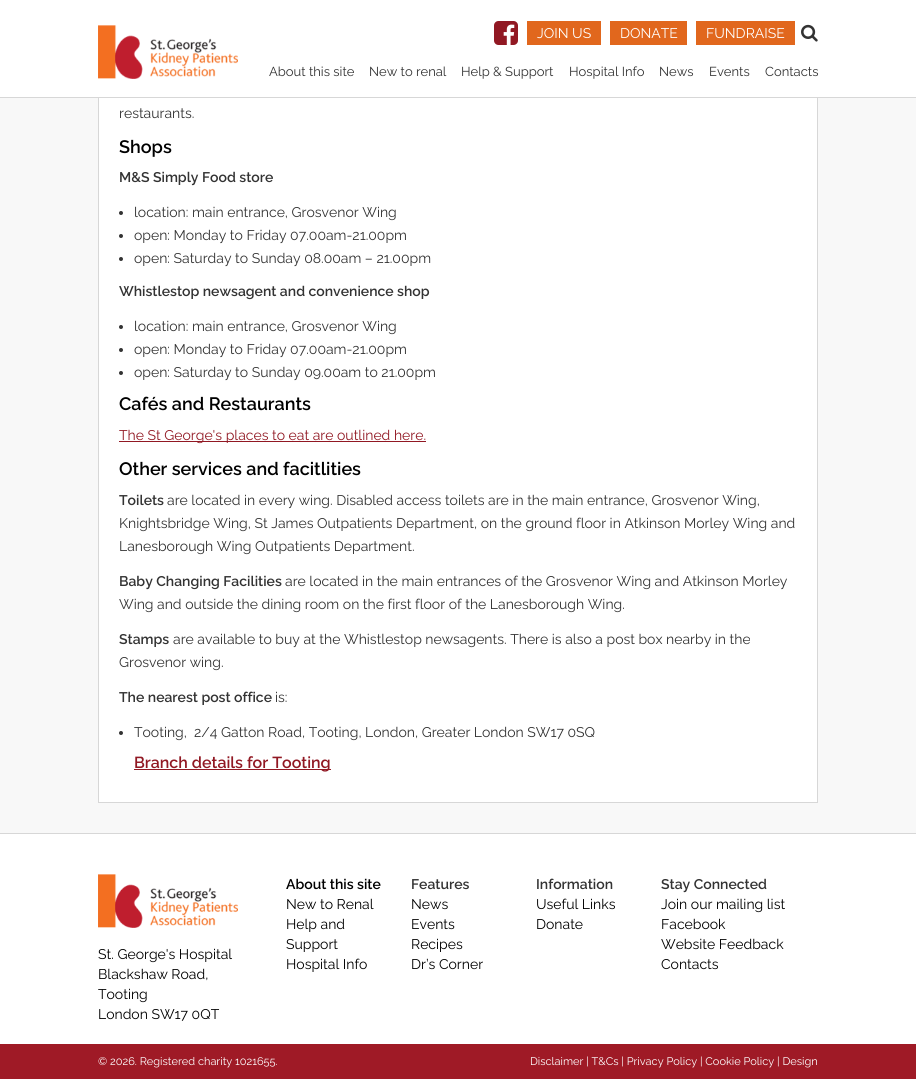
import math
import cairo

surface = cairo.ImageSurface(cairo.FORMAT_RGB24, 916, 1079)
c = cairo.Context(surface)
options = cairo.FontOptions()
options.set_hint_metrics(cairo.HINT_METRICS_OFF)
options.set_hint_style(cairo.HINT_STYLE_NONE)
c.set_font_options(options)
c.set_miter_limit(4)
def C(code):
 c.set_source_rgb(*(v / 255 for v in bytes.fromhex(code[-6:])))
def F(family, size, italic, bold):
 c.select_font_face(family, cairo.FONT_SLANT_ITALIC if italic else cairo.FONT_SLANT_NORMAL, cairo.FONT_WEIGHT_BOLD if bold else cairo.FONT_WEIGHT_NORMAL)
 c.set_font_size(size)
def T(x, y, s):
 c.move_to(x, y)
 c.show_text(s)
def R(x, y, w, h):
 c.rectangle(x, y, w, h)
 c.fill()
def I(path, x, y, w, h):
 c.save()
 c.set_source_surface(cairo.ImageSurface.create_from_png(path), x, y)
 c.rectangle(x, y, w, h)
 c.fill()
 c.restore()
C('f8f8f8')
c.paint()
C('ffffff')
R(99,98,718,704)
c.rectangle(98.5,-.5,719,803)
C('d7d7d7')
c.set_line_width(1)
c.stroke()
C('ffffff')
R(0,0,916,97)
C('d7d7d7')
R(0,97,916,1)
I('1.png',98,25,140,54)
I('2.png',494,21,24,24)
C('e1671d')
R(527,21,74,24)
F('Raleway',14,0,0)
C('ffffff')
T(537,38,'JOIN US')
C('e1671d')
R(610,21,77,24)
C('ffffff')
T(620,38,'DONATE')
C('e1671d')
R(696,21,99,24)
C('ffffff')
T(706,38,'FUNDRAISE')
I('3.png',801,24,17,18)
F('Raleway',13,0,0)
C('333333')
T(269,76,'About this site')
T(369,76,'New to renal')
T(461,76,'Help & Support')
T(569,76,'Hospital Info')
T(659,76,'News')
T(709,76,'Events')
T(765,76,'Contacts')
F('Raleway',14,0,0)
T(119,118,'restaurants.')
F('Raleway SemiBold',18,0,0)
C('000000')
T(119,153,'Shops')
F('Raleway SemiBold',14,0,0)
C('333333')
T(119,182,'M&S Simply Food store')
c.new_path()
c.arc(121,213,2,0,2 * math.pi)
c.fill()
F('Raleway',14,0,0)
T(134,217,'location: main entrance, Grosvenor Wing')
c.new_path()
c.arc(121,236,2,0,2 * math.pi)
c.fill()
T(134,240,'open: Monday to Friday 07.00am-21.00pm')
c.new_path()
c.arc(121,259,2,0,2 * math.pi)
c.fill()
T(134,263,'open: Saturday to Sunday 08.00am – 21.00pm')
F('Raleway SemiBold',14,0,0)
T(119,296,'Whistlestop newsagent and convenience shop')
c.new_path()
c.arc(121,327,2,0,2 * math.pi)
c.fill()
F('Raleway',14,0,0)
T(134,331,'location: main entrance, Grosvenor Wing')
c.new_path()
c.arc(121,350,2,0,2 * math.pi)
c.fill()
T(134,354,'open: Monday to Friday 07.00am-21.00pm')
c.new_path()
c.arc(121,373,2,0,2 * math.pi)
c.fill()
T(134,377,'open: Saturday to Sunday 09.00am to 21.00pm')
F('Raleway SemiBold',18,0,0)
C('000000')
T(119,410,'Cafés and Restaurants')
C('911823')
R(119,441,307,1)
F('Raleway',14,0,0)
T(119,440,'The St George\'s places to eat are outlined here.')
F('Raleway SemiBold',18,0,0)
C('000000')
T(119,475,'Other services and facitlities')
F('Raleway SemiBold',14,0,0)
C('333333')
T(119,505,'Toilets')
F('Raleway',14,0,0)
T(167,505,'are located in every wing. Disabled access toilets are in the main entrance, Grosvenor Wing,')
T(119,528,'Knightsbridge Wing, St James Outpatients Department, on the ground floor in Atkinson Morley Wing and')
T(119,551,'Lanesborough Wing Outpatients Department.')
F('Raleway SemiBold',14,0,0)
T(119,586,'Baby Changing Facilities')
F('Raleway',14,0,0)
T(285,586,'are located in the main entrances of the Grosvenor Wing and Atkinson Morley')
T(119,609,'Wing and outside the dining room on the first floor of the Lanesborough Wing.')
F('Raleway SemiBold',14,0,0)
T(119,644,'Stamps')
F('Raleway',14,0,0)
T(173,644,'are available to buy at the Whistlestop newsagents. There is also a post box nearby in the')
T(119,667,'Grosvenor wing.')
F('Raleway SemiBold',14,0,0)
T(119,702,'The nearest post office')
F('Raleway',14,0,0)
T(275,702,'is:')
c.new_path()
c.arc(121,733,2,0,2 * math.pi)
c.fill()
T(134,737,'Tooting,  2/4 Gatton Road, Tooting, London, Greater London SW17 0SQ')
C('911823')
R(134,769,197,1)
F('Raleway SemiBold',16,0,0)
T(134,768,'Branch details for Tooting')
C('ffffff')
R(0,834,916,210)
C('d7d7d7')
R(0,833,916,1)
F('Raleway SemiBold',14,0,0)
C('000000')
T(286,889,'About this site')
F('Raleway',14,0,0)
T(286,909,'New to Renal')
T(286,929,'Help and')
T(286,949,'Support')
T(286,969,'Hospital Info')
F('Raleway SemiBold',14,0,0)
C('333333')
T(411,889,'Features')
F('Raleway',14,0,0)
C('000000')
T(411,909,'News')
T(411,929,'Events')
T(411,949,'Recipes')
T(411,969,'Dr’s Corner')
F('Raleway SemiBold',14,0,0)
C('333333')
T(536,889,'Information')
F('Raleway',14,0,0)
C('000000')
T(536,909,'Useful Links')
T(536,929,'Donate')
F('Raleway SemiBold',14,0,0)
C('333333')
T(661,889,'Stay Connected')
F('Raleway',14,0,0)
C('000000')
T(661,909,'Join our mailing list')
T(661,929,'Facebook')
T(661,949,'Website Feedback')
T(661,969,'Contacts')
I('4.png',98,874,140,54)
T(98,959,'St. George\'s Hospital')
T(98,979,'Blackshaw Road,')
T(98,999,'Tooting')
T(98,1019,'London SW17 0QT')
C('9f1a26')
R(0,1044,916,35)
F('Raleway',11,0,0)
C('ffffff')
T(98,1065,'© 2026. Registered charity 1021655.')
T(530,1065,'Disclaimer | T&Cs | Privacy Policy | Cookie Policy | Design')
surface.write_to_png('o.png')
